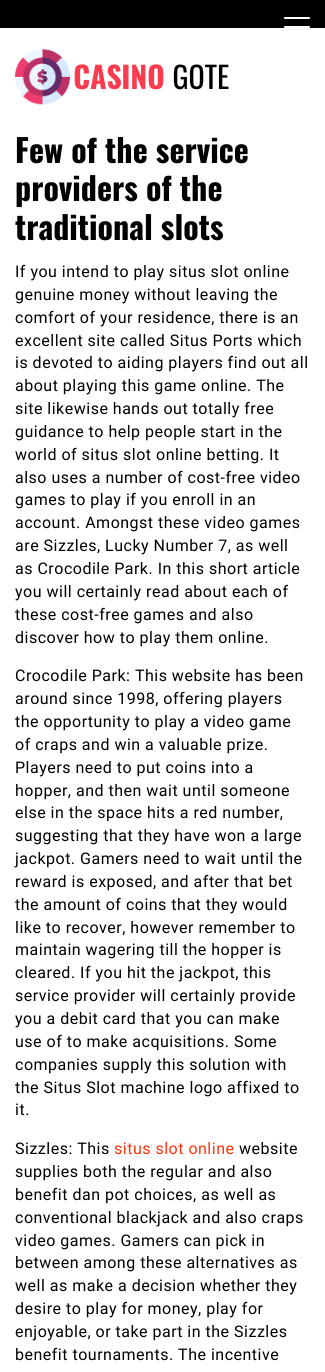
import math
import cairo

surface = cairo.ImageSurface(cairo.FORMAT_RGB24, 325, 1372)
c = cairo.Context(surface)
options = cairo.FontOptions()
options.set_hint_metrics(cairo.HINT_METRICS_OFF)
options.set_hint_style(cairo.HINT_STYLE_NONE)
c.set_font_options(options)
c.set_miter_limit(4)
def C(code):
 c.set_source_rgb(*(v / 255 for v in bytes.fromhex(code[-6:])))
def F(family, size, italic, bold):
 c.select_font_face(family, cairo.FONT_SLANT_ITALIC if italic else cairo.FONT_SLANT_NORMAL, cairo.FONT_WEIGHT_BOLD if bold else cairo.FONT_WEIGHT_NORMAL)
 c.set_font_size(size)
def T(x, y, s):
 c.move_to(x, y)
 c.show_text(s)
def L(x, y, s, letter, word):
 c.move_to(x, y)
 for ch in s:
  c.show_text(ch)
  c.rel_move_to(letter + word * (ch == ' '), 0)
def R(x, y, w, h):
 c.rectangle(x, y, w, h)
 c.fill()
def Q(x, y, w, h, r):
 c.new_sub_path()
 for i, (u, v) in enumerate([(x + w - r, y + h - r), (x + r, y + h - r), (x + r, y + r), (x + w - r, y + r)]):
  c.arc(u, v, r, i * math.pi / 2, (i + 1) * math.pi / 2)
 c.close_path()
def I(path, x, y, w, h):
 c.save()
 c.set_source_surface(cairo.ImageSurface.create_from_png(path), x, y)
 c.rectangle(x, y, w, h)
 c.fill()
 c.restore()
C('ffffff')
c.paint()
C('000000')
R(0,0,325,28)
C('ffffff')
Q(284,26,26,2,1)
c.fill()
Q(284,17,26,2,1)
c.fill()
I('1.png',15,49,214,56)
F('Oswald',32,0,1)
C('000000')
T(15,163,'Few of the service')
T(15,201,'providers of the')
T(15,240,'traditional slots')
F('Roboto',16,0,0)
L(15,277,'If you intend to play situs slot online',.5,0)
L(15,300,'genuine money without leaving the',.5,0)
L(15,323,'comfort of your residence, there is an',.5,0)
L(15,346,'excellent site called Situs Ports which',.5,0)
L(15,368,'is devoted to aiding players find out all',.5,0)
L(15,391,'about playing this game online. The',.5,0)
L(15,414,'site likewise hands out totally free',.5,0)
L(15,437,'guidance to help people start in the',.5,0)
L(15,460,'world of situs slot online betting. It',.5,0)
L(15,483,'also uses a number of cost-free video',.5,0)
L(15,505,'games to play if you enroll in an',.5,0)
L(15,528,'account. Amongst these video games',.5,0)
L(15,551,'are Sizzles, Lucky Number 7, as well',.5,0)
L(15,574,'as Crocodile Park. In this short article',.5,0)
L(15,597,'you will certainly read about each of',.5,0)
L(15,620,'these cost-free games and also',.5,0)
L(15,643,'discover how to play them online.',.5,0)
L(15,681,'Crocodile Park: This website has been',.5,0)
L(15,704,'around since 1998, offering players',.5,0)
L(15,727,'the opportunity to play a video game',.5,0)
L(15,750,'of craps and win a valuable prize.',.5,0)
L(15,773,'Players need to put coins into a',.5,0)
L(15,796,'hopper, and then wait until someone',.5,0)
L(15,818,'else in the space hits a red number,',.5,0)
L(15,841,'suggesting that they have won a large',.5,0)
L(15,864,'jackpot. Gamers need to wait until the',.5,0)
L(15,887,'reward is exposed, and after that bet',.5,0)
L(15,910,'the amount of coins that they would',.5,0)
L(15,933,'like to recover, however remember to',.5,0)
L(15,955,'maintain wagering till the hopper is',.5,0)
L(15,978,'cleared. If you hit the jackpot, this',.5,0)
L(15,1001,'service provider will certainly provide',.5,0)
L(15,1024,'you a debit card that you can make',.5,0)
L(15,1047,'use of to make acquisitions. Some',.5,0)
L(15,1070,'companies supply this solution with',.5,0)
L(15,1093,'the Situs Slot machine logo affixed to',.5,0)
L(15,1115,'it.',.5,0)
L(15,1154,'Sizzles: This',.5,0)
C('ff3209')
L(114,1154,'situs slot online',.5,0)
C('000000')
L(239,1154,'website',.5,0)
L(15,1177,'supplies both the regular and also',.5,0)
L(15,1200,'benefit dan pot choices, as well as',.5,0)
L(15,1223,'conventional blackjack and also craps',.5,0)
L(15,1246,'video games. Gamers can pick in',.5,0)
L(15,1268,'between among these alternatives as',.5,0)
L(15,1291,'well as make a decision whether they',.5,0)
L(15,1314,'desire to play for money, play for',.5,0)
L(15,1337,'enjoyable, or take part in the Sizzles',.5,0)
L(15,1360,'benefit tournaments. The incentive',.5,0)
surface.write_to_png('o.png')
